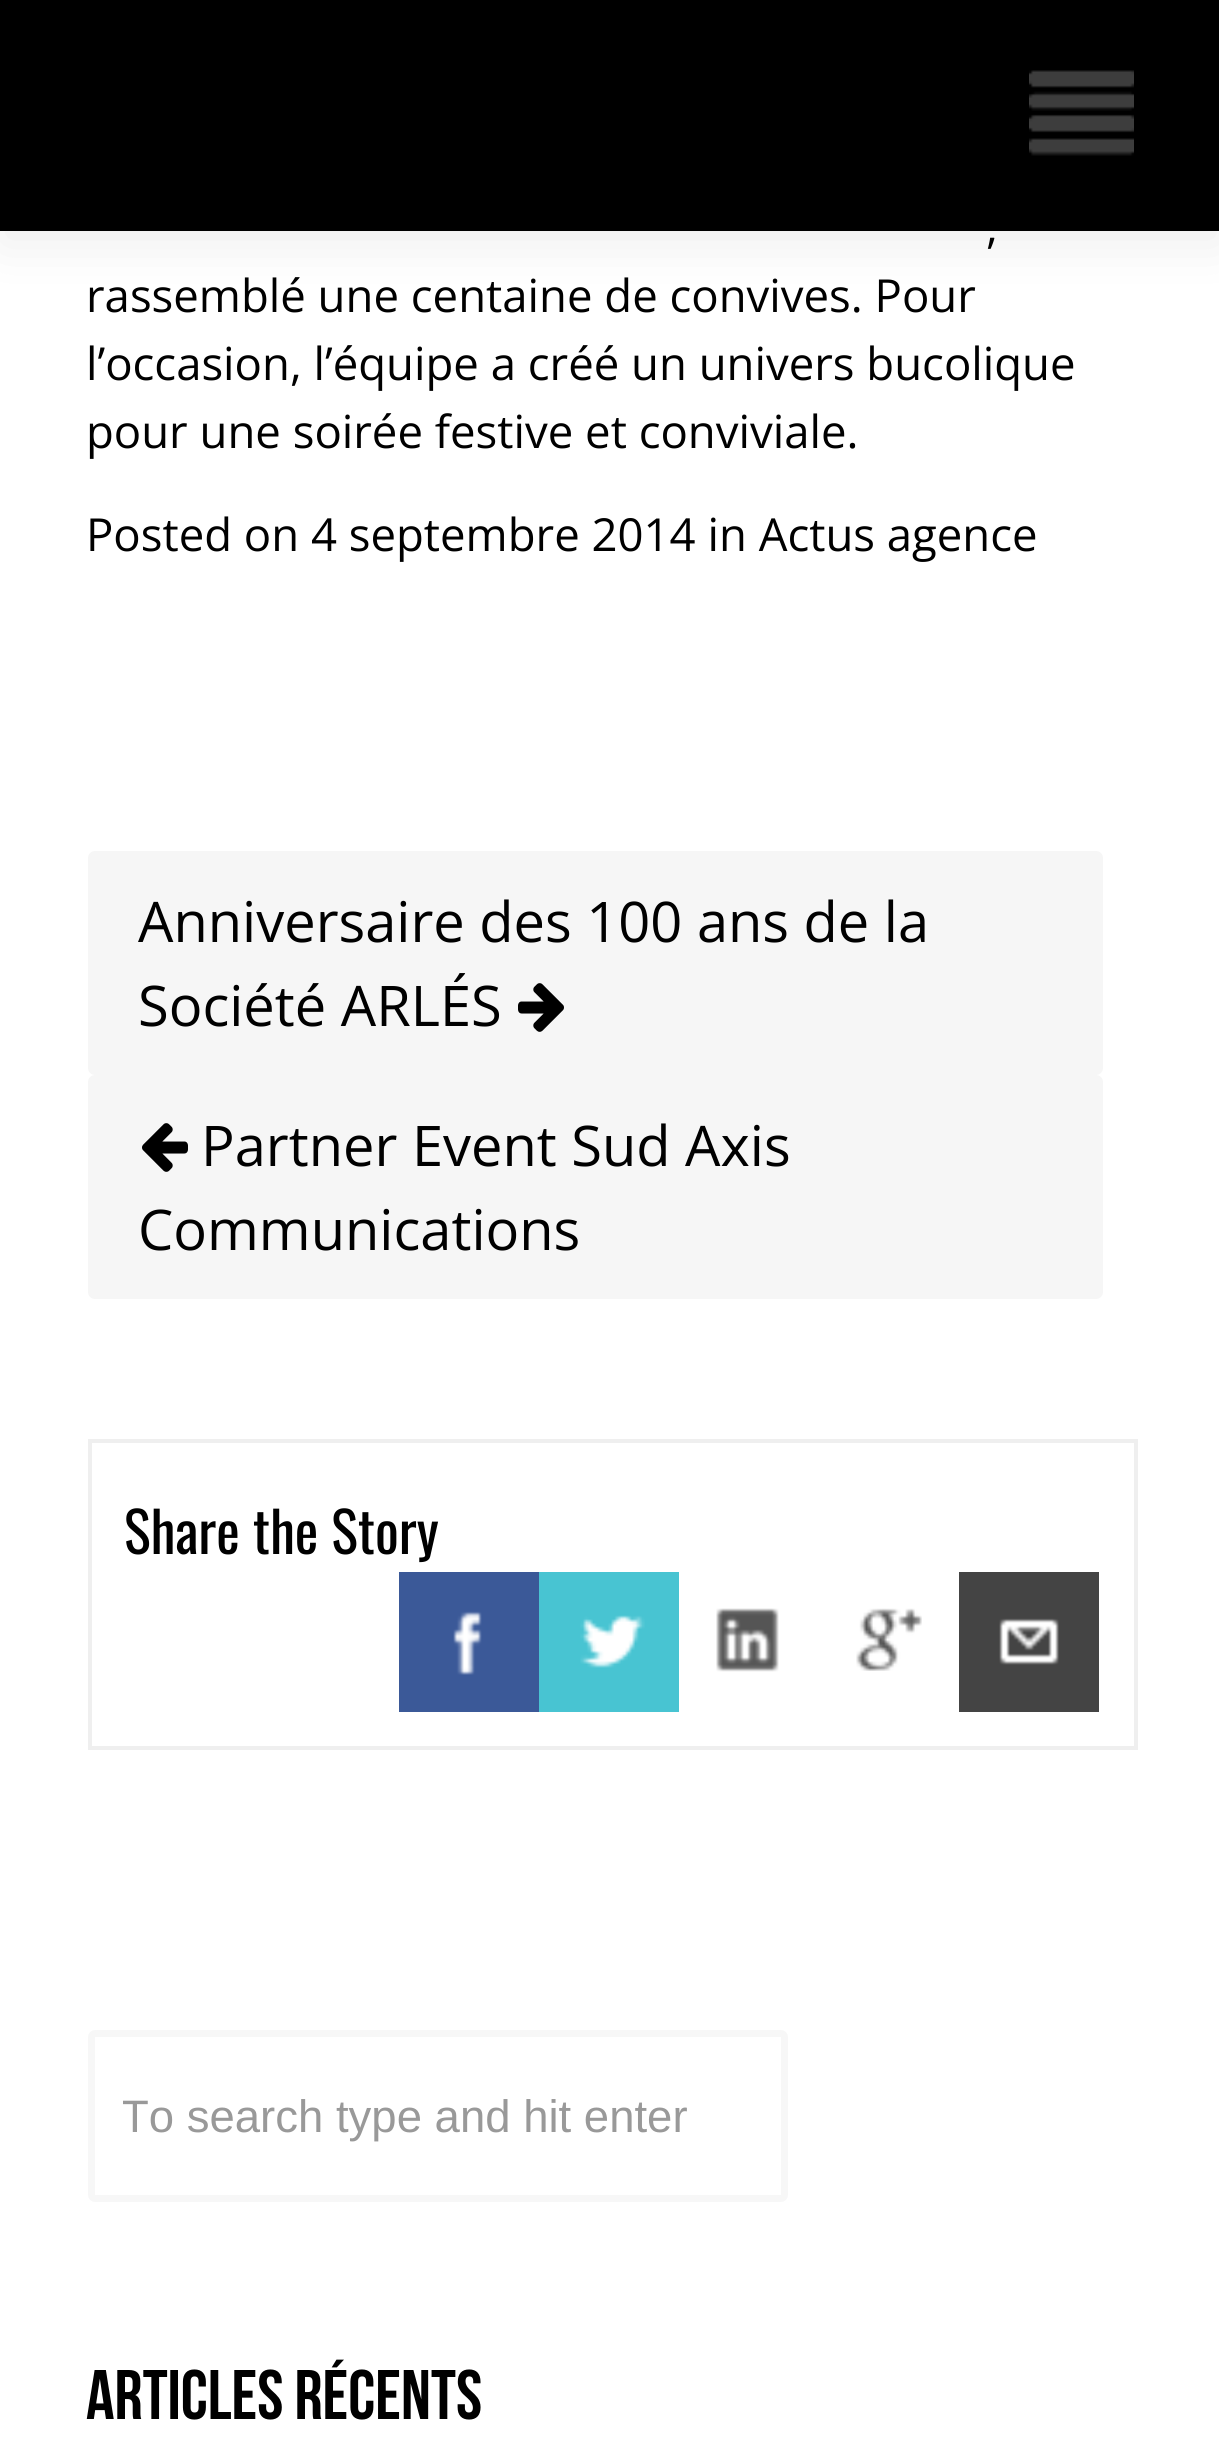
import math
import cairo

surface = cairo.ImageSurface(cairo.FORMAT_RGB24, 1219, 2463)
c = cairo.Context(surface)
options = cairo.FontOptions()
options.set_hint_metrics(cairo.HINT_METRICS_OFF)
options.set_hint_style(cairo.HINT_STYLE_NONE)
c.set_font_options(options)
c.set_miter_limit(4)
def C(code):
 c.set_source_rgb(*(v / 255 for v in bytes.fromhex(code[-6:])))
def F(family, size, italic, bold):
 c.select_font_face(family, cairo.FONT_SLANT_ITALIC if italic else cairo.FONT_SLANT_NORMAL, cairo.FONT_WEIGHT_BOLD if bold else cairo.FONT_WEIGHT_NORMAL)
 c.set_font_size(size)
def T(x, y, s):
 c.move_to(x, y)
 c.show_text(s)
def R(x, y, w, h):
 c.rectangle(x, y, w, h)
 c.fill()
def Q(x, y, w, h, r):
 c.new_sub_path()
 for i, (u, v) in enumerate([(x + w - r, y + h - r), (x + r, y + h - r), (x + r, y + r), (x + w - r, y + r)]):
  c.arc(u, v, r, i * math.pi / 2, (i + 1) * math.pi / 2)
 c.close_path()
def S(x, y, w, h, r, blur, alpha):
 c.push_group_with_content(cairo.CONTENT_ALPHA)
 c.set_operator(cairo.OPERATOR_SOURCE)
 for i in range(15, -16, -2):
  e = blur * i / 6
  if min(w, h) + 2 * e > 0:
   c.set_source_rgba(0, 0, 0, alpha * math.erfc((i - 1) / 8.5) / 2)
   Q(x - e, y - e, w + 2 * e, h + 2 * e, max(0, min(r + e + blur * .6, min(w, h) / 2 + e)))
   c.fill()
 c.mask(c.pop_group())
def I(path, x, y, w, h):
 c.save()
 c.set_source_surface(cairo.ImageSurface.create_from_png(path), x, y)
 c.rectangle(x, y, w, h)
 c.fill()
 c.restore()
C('ffffff')
c.paint()
C('000000')
S(0,14,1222,231,0,26,.07)
C('000000')
R(0,0,1219,231)
I('1.png',1029,70,105,86)
F('Open Sans',45.5,0,0)
T(986,243,',')
T(86,312,'rassemblé une centaine de convives. Pour')
T(86,380,'l’occasion, l’équipe a créé un univers bucolique')
T(86,448,'pour une soirée festive et conviviale.')
T(86,551,'Posted on 4 septembre 2014 in Actus agence')
C('f6f6f6')
Q(88,851,1015,224,7)
c.fill()
F('Open Sans',56,0,0)
C('000000')
T(138,942,'Anniversaire des 100 ans de la')
T(138,1026,'Société ARLÉS')
I('2.png',518,983,46,49)
C('f6f6f6')
Q(88,1075,1015,224,7)
c.fill()
I('3.png',142,1123,46,49)
C('000000')
T(201,1166,'Partner Event Sud Axis')
T(138,1250,'Communications')
c.rectangle(90,1441,1046,307)
C('efefef')
c.set_line_width(4)
c.stroke()
F('Oswald',56,0,0)
C('000000')
T(124,1554,'Share the Story')
C('3b5998')
R(399,1572,140,140)
I('4.png',453,1611,29,64)
C('48c4d2')
R(539,1572,140,140)
I('5.png',580,1615,65,53)
I('6.png',716,1608,63,64)
I('7.png',856,1608,66,63)
C('444444')
R(959,1572,140,140)
I('8.png',999,1618,60,47)
Q(91.5,2033.5,693,165,3.5)
C('f7f7f7')
c.set_line_width(7)
c.stroke()
c.save()
c.rectangle(123,2090,630,52)
c.clip()
F('Liberation Sans',45.5,0,0)
C('999999')
T(121,2132,'To search type and hit enter')
c.restore()
F('Bebas Neue',70,0,0)
C('000000')
T(86,2419,'Articles récents')
surface.write_to_png('o.png')
